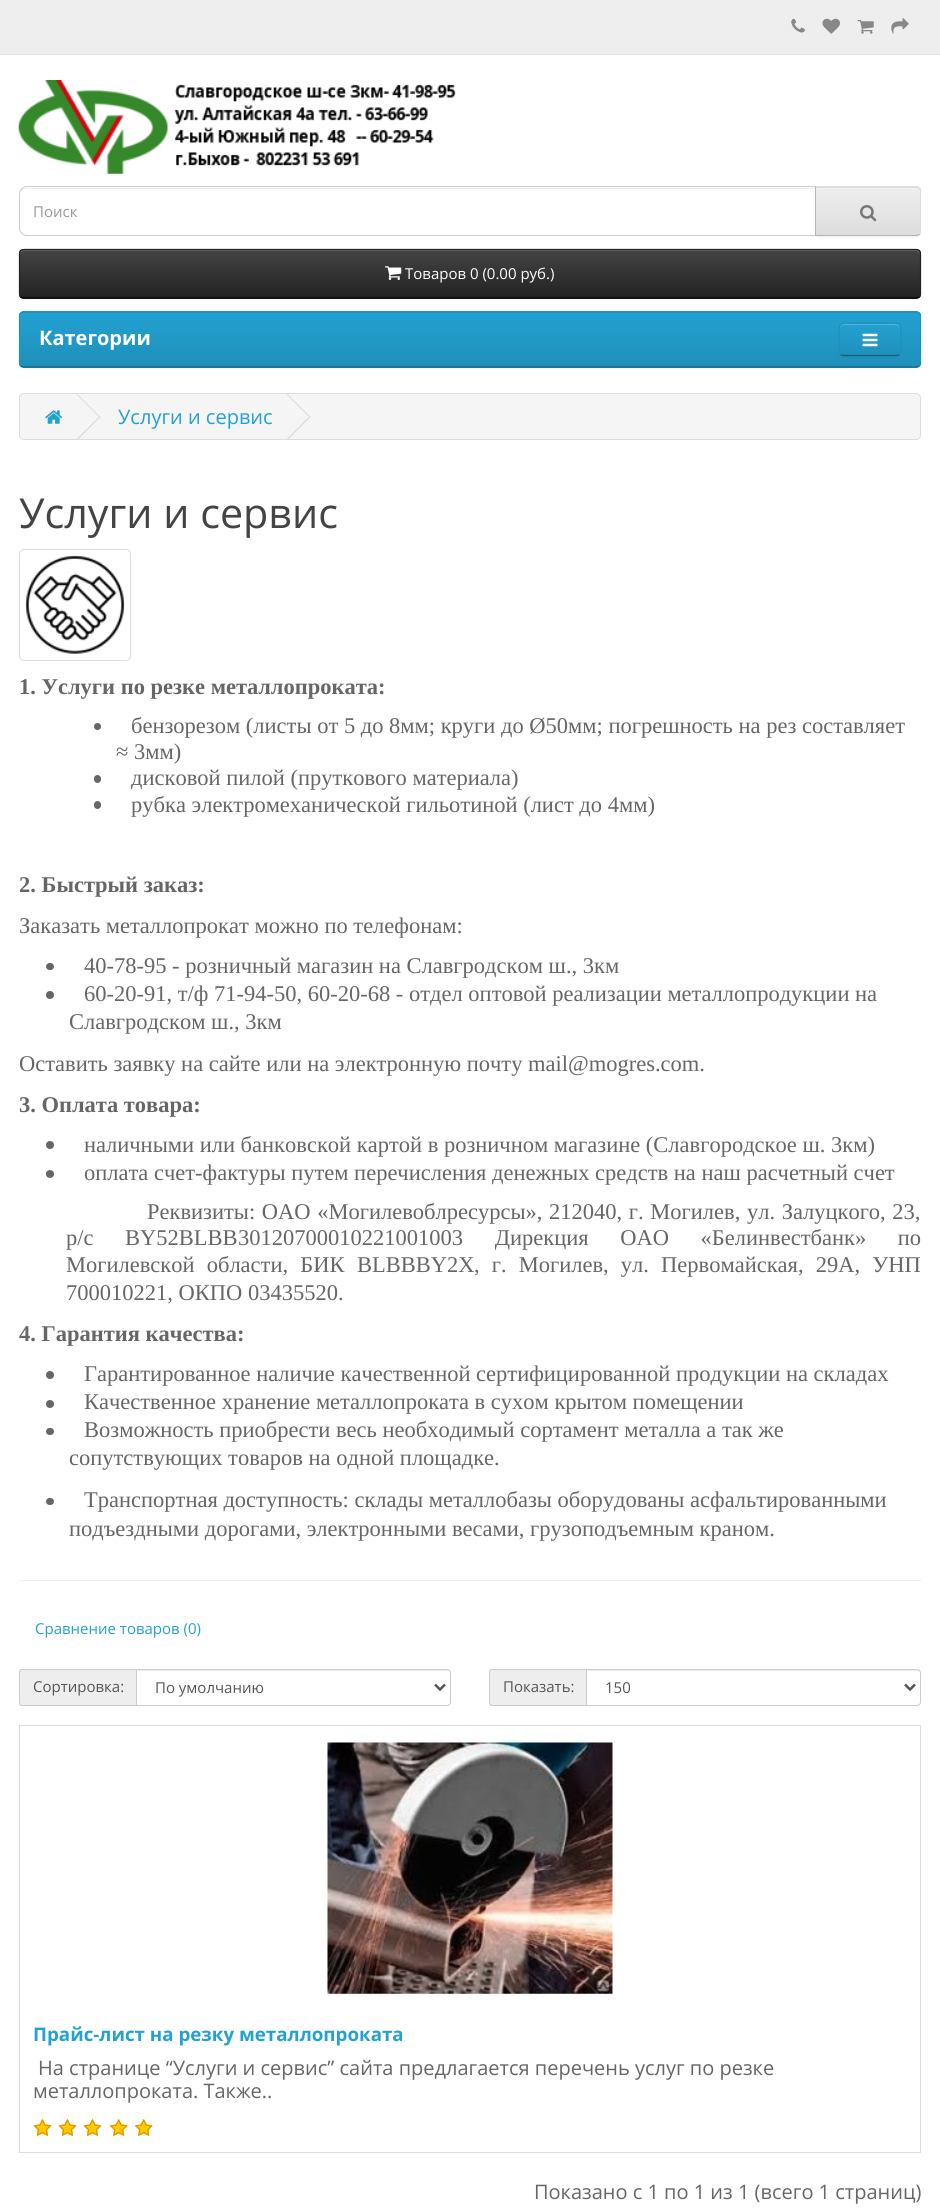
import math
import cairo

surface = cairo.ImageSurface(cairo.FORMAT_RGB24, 940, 2212)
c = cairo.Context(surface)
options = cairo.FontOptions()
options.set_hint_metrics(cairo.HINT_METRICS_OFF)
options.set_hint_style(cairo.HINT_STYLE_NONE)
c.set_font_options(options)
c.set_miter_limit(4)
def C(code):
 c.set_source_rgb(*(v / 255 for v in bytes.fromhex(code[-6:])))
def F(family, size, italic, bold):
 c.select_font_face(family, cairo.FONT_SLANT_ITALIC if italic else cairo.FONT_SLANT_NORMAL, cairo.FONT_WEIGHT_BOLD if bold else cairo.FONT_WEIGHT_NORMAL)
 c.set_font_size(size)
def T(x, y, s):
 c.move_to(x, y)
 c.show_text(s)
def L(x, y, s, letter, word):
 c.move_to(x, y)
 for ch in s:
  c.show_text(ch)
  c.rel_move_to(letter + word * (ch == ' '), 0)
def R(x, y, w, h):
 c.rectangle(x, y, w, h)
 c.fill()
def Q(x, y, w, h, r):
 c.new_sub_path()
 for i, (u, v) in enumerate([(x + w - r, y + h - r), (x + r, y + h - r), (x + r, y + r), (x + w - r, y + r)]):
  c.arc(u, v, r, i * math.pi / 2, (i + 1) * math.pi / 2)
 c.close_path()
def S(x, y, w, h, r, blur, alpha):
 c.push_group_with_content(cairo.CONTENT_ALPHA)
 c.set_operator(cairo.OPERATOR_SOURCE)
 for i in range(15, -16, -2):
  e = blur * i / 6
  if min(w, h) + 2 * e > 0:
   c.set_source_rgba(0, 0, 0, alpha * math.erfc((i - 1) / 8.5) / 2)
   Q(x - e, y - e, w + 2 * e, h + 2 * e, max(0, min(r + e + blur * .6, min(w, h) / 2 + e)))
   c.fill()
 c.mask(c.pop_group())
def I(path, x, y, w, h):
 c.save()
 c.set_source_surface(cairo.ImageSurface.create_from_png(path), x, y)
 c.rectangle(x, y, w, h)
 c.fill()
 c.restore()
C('ffffff')
c.paint()
C('eeeeee')
R(0,0,940,54)
C('e2e2e2')
R(0,54,940,1)
I('1.png',791,18,14,15)
I('2.png',822,18,18,16)
I('3.png',857,20,17,14)
I('4.png',891,18,18,16)
I('5.png',18,80,438,94)
C('ececec')
c.new_path()
c.move_to(26,189)
c.line_to(815,189)
c.line_to(815,188)
c.line_to(26,188)
c.curve_to(22,188,20,191,20,195)
c.curve_to(20,192,23,189,26,189)
c.close_path()
c.fill()
c.new_path()
c.move_to(27,186.5)
c.line_to(815.5,186.5)
c.line_to(815.5,235.5)
c.line_to(27,235.5)
c.curve_to(23,235.5,19.5,232,19.5,228)
c.line_to(19.5,194)
c.curve_to(19.5,190,23,186.5,27,186.5)
c.close_path()
C('cccccc')
c.set_line_width(1)
c.stroke()
F('Open Sans',15,0,0)
C('999999')
T(33,217,'Поиск')
C('000000')
S(815,188,106,50,5,1,.05)
c.save()
c.new_path()
c.move_to(815,186)
c.line_to(916,186)
c.curve_to(919,186,921,188,921,191)
c.line_to(921,231)
c.curve_to(921,234,919,236,916,236)
c.line_to(815,236)
c.close_path()
c.clip()
gradient = cairo.LinearGradient(868,188,868,235)
gradient.add_color_stop_rgba(0,0.933,0.933,0.933,1)
gradient.add_color_stop_rgba(1,0.867,0.867,0.867,1)
c.set_source(gradient)
R(816,188,105,47)
c.restore()
C('f1f1f1')
c.new_path()
c.move_to(816,189)
c.line_to(916,189)
c.curve_to(918,189,920,190,920,192)
c.curve_to(920,190,918,188,916,188)
c.line_to(816,188)
c.close_path()
c.fill()
C('dddddd')
c.new_path()
c.move_to(815,186)
c.line_to(918,186)
c.line_to(920,188)
c.line_to(919,189)
c.line_to(916,188)
c.line_to(817,188)
c.close_path()
c.fill()
c.new_path()
c.move_to(920,188)
c.curve_to(921,188,921,190,921,191)
c.line_to(921,231)
c.curve_to(921,232,920,234,920,235)
c.line_to(919,234)
c.line_to(920,231)
c.line_to(920,191)
c.line_to(919,189)
c.close_path()
c.fill()
C('b3b3b3')
c.new_path()
c.move_to(920,235)
c.line_to(917,236)
c.line_to(815,236)
c.line_to(816,235)
c.line_to(916,235)
c.line_to(919,234)
c.close_path()
c.fill()
C('b7b7b7')
c.new_path()
c.move_to(816,188)
c.line_to(817,188)
c.line_to(815,186)
c.line_to(815,236)
c.line_to(816,235)
c.close_path()
c.fill()
I('6.png',860,205,17,17)
C('000000')
S(19,250,902,50,5,1,.05)
C('363636')
Q(19,249,902,50,5)
c.fill()
c.save()
Q(19,249,902,50,5)
c.clip()
gradient = cairo.LinearGradient(470,250,470,298)
gradient.add_color_stop_rgba(0,0.267,0.267,0.267,1)
gradient.add_color_stop_rgba(1,0.133,0.133,0.133,1)
c.set_source(gradient)
R(19,250,902,48)
c.restore()
C('696969')
c.new_path()
c.move_to(24,251)
c.line_to(916,251)
c.curve_to(918,251,920,253,920,255)
c.curve_to(920,252,919,250,916,250)
c.line_to(24,250)
c.curve_to(21,250,20,252,20,255)
c.curve_to(20,253,22,251,24,251)
c.close_path()
c.fill()
c.new_path()
c.move_to(919.5,297)
c.curve_to(918.5,297.5,917.5,298,916,298)
c.line_to(24,298)
c.curve_to(22.5,298,21.5,297.5,20.5,297)
C('000000')
c.set_line_width(1.2)
c.stroke()
c.new_path()
c.move_to(20.5,297)
c.curve_to(20,296,19.5,295,19.5,294)
c.line_to(19.5,254)
c.curve_to(19.5,252.5,20,251.5,20.5,250.5)
c.curve_to(21.5,250,22.5,249.5,24,249.5)
c.line_to(916,249.5)
c.curve_to(917.5,249.5,918.5,250,919.5,250.5)
c.curve_to(920,251.5,920.5,252.5,920.5,254)
c.line_to(920.5,294)
c.curve_to(920.5,295,920,296,919.5,297)
C('222222')
c.stroke()
I('7.png',385,266,17,14)
C('ffffff')
T(405,279,'Товаров 0 (0.00 руб.)')
C('229ac8')
Q(19,311,902,57,5)
c.fill()
c.save()
Q(19,311,902,57,5)
c.clip()
gradient = cairo.LinearGradient(470,312,470,366)
gradient.add_color_stop_rgba(0,0.137,0.631,0.82,1)
gradient.add_color_stop_rgba(1,0.122,0.565,0.733,1)
c.set_source(gradient)
R(19,313,902,53)
c.restore()
c.new_path()
c.move_to(919.5,365.5)
c.curve_to(918.5,366.5,917.5,367,916,367)
c.line_to(24,367)
c.curve_to(22.5,367,21.5,366.5,20.5,365.5)
C('145e7a')
c.stroke()
c.new_path()
c.move_to(20.5,365.5)
c.curve_to(20,365,19.5,363.5,19.5,362.5)
c.line_to(19.5,316)
c.curve_to(19.5,315,20,314,20.5,313)
c.curve_to(21.5,312.5,22.5,312,24,312)
c.line_to(916,312)
c.curve_to(917.5,312,918.5,312.5,919.5,313)
c.curve_to(920,314,920.5,315,920.5,316)
c.line_to(920.5,362.5)
c.curve_to(920.5,363.5,920,365,919.5,365.5)
C('1f90bb')
c.stroke()
F('Open Sans',20,0,1)
C('ffffff')
T(39,345,'Категории')
C('000000')
S(839,324,62,34,5,1,.05)
C('229ac8')
Q(839,323,62,33,5)
c.fill()
c.save()
Q(839,323,62,33,5)
c.clip()
gradient = cairo.LinearGradient(870,324,870,355)
gradient.add_color_stop_rgba(0,0.137,0.631,0.82,1)
gradient.add_color_stop_rgba(1,0.122,0.565,0.733,1)
c.set_source(gradient)
R(839,324,62,31)
c.restore()
C('4fb4da')
c.new_path()
c.move_to(844,325)
c.line_to(896,325)
c.curve_to(898,325,900,327,900,329)
c.curve_to(900,322,892,324,887,324)
c.line_to(853,324)
c.curve_to(848,324,840,322,840,329)
c.curve_to(840,327,842,325,844,325)
c.close_path()
c.fill()
c.new_path()
c.move_to(899.5,354.5)
c.curve_to(898.5,355,897.5,355.5,896,355.5)
c.line_to(844,355.5)
c.curve_to(842.5,355.5,841.5,355,840.5,354.5)
C('145e7a')
c.stroke()
c.new_path()
c.move_to(840.5,354.5)
c.curve_to(838,351.5,839.5,342.5,839.5,339.5)
c.curve_to(839.5,323,836.5,323,852.5,323)
c.line_to(887.5,323)
c.curve_to(903.5,323,900.5,323,900.5,339.5)
c.curve_to(900.5,342.5,902,351.5,899.5,354.5)
C('1f90bb')
c.stroke()
I('8.png',862,333,16,14)
C('f5f5f5')
Q(19.5,393.5,901,46,4.5)
c.fill_preserve()
C('dddddd')
c.set_line_width(1)
c.stroke()
I('9.png',45,410,18,14)
c.new_path()
c.move_to(76.5,394.5)
c.line_to(77.5,394)
c.line_to(100.5,417)
c.line_to(99.5,417.5)
c.close_path()
c.fill()
c.new_path()
c.move_to(76.5,439)
c.line_to(99.5,416)
c.line_to(100.5,417)
c.line_to(77.5,440)
c.close_path()
c.fill()
F('Open Sans',20,0,0)
C('23a1d1')
T(118,424,'Услуги и сервис')
C('dddddd')
c.new_path()
c.move_to(286.5,394.5)
c.line_to(287.5,394)
c.line_to(310.5,417)
c.line_to(309.5,417.5)
c.close_path()
c.fill()
c.new_path()
c.move_to(286.5,439)
c.line_to(309.5,416)
c.line_to(310.5,417)
c.line_to(287.5,440)
c.close_path()
c.fill()
F('Open Sans',41.25,0,0)
C('444444')
T(19,528,'Услуги и сервис')
Q(19.5,549.5,111,111,4.5)
C('dddddd')
c.stroke()
I('10.png',25,555,100,99)
F('Liberation Serif',22.5,0,1)
C('666666')
T(19,694,'1. Услуги по резке металлопроката:')
c.new_path()
c.arc(97.5,726.5,3.5,0,2 * math.pi)
c.fill()
F('Liberation Serif',22.5,0,0)
T(131,733,'бензорезом (листы от 5 до 8мм; круги до Ø50мм; погрешность на рез составляет')
T(116,759,'≈ 3мм)')
Q(94,775,7,8,3.5)
c.fill()
T(131,785,'дисковой пилой (пруткового материала)')
Q(94,801,7,8,3.5)
c.fill()
T(131,812,'рубка электромеханической гильотиной (лист до 4мм)')
F('Liberation Serif',22.5,0,1)
T(19,892,'2. Быстрый заказ:')
F('Liberation Serif',22.5,0,0)
T(19,933,'Заказать металлопрокат можно по телефонам:')
Q(46,963,8,7,3.5)
c.fill()
T(84,973,'40-78-95 - розничный магазин на Славгродском ш., 3км')
c.new_path()
c.arc(50,995,4,0,2 * math.pi)
c.fill()
T(84,1001,'60-20-91, т/ф 71-94-50, 60-20-68 - отдел оптовой реализации металлопродукции на')
T(69,1029,'Славгродском ш., 3км')
T(19,1071,'Оставить заявку на сайте или на электронную почту mail@mogres.com.')
F('Liberation Serif',22.5,0,1)
T(19,1112,'3. Оплата товара:')
c.new_path()
c.arc(50,1145,4,0,2 * math.pi)
c.fill()
F('Liberation Serif',22.5,0,0)
T(84,1152,'наличными или банковской картой в розничном магазине (Славгородское ш. 3км)')
c.new_path()
c.arc(50,1174,4,0,2 * math.pi)
c.fill()
T(84,1180,'оплата счет-фактуры путем перечисления денежных средств на наш расчетный счет')
L(147,1219,'Реквизиты: ОАО «Могилевоблресурсы», 212040, г. Могилев, ул. Залуцкого, 23,',0,1)
T(66,1245,'р/с')
T(125,1245,'BY52BLBB')
L(238,1245,'30120700010221001003 Дирекция ОАО «Белинвестбанк» по',0,26)
L(66,1272,'Могилевской области, БИК',0,6.5)
T(357,1272,'BLBBBY2X')
L(474,1272,', г. Могилев, ул. Первомайская, 29А, УНП',0,6.5)
T(66,1300,'700010221, ОКПО 03435520.')
F('Liberation Serif',22.5,0,1)
T(19,1341,'4. Гарантия качества:')
c.new_path()
c.arc(50,1375,4,0,2 * math.pi)
c.fill()
F('Liberation Serif',22.5,0,0)
T(84,1381,'Гарантированное наличие качественной сертифицированной продукции на складах')
c.new_path()
c.arc(50,1404,4,0,2 * math.pi)
c.fill()
T(84,1409,'Качественное хранение металлопроката в сухом крытом помещении')
Q(46,1428,8,7,3.5)
c.fill()
T(84,1437,'Возможность приобрести весь необходимый сортамент металла а так же')
T(69,1465,'сопутствующих товаров на одной площадке.')
Q(46,1498,8,7,3.5)
c.fill()
T(84,1507,'Транспортная доступность: склады металлобазы оборудованы асфальтированными')
T(69,1536,'подъездными дорогами, электронными весами, грузоподъемным краном.')
C('eeeeee')
R(19,1580,902,1)
F('Open Sans',15,0,0)
C('23a1d1')
T(35,1634,'Сравнение товаров (0)')
C('eeeeee')
c.new_path()
c.move_to(23,1669)
c.line_to(136,1669)
c.line_to(136,1706)
c.line_to(23,1706)
c.curve_to(21,1706,19,1704,19,1702)
c.line_to(19,1673)
c.curve_to(19,1671,21,1669,23,1669)
c.close_path()
c.fill()
C('cccccc')
c.set_fill_rule(cairo.FILL_RULE_EVEN_ODD)
c.new_path()
c.move_to(22,1669)
c.line_to(136,1669)
c.line_to(136,1706)
c.line_to(22,1706)
c.curve_to(20,1706,19,1705,19,1702)
c.line_to(19,1672)
c.curve_to(19,1670,20,1669,22,1669)
c.close_path()
c.move_to(22,1670)
c.line_to(136,1670)
c.line_to(136,1705)
c.line_to(22,1705)
c.curve_to(21,1705,20,1704,20,1702)
c.line_to(20,1672)
c.curve_to(20,1671,21,1670,22,1670)
c.close_path()
c.fill()
C('555555')
T(33,1692,'Сортировка:')
C('ececec')
c.set_fill_rule(cairo.FILL_RULE_WINDING)
c.new_path()
c.move_to(138,1671)
c.line_to(448,1671)
c.curve_to(449,1671,450,1672,450,1674)
c.line_to(450,1672)
c.curve_to(450,1671,449,1670,448,1670)
c.line_to(138,1670)
c.close_path()
c.fill()
c.new_path()
c.move_to(136.5,1669.5)
c.line_to(447,1669.5)
c.curve_to(449,1669.5,450.5,1671,450.5,1673)
c.line_to(450.5,1702)
c.curve_to(450.5,1704,449,1705.5,447,1705.5)
c.line_to(136.5,1705.5)
c.close_path()
C('cccccc')
c.stroke()
c.new_path()
c.move_to(435,1684.5)
c.line_to(440,1689.5)
c.line_to(445,1684.5)
C('555555')
c.set_line_width(2.5)
c.stroke()
T(155,1693,'По умолчанию')
C('eeeeee')
c.new_path()
c.move_to(493,1669)
c.line_to(586,1669)
c.line_to(586,1706)
c.line_to(493,1706)
c.curve_to(491,1706,489,1704,489,1702)
c.line_to(489,1673)
c.curve_to(489,1671,491,1669,493,1669)
c.close_path()
c.fill()
C('cccccc')
c.set_fill_rule(cairo.FILL_RULE_EVEN_ODD)
c.new_path()
c.move_to(492,1669)
c.line_to(586,1669)
c.line_to(586,1706)
c.line_to(492,1706)
c.curve_to(490,1706,489,1705,489,1702)
c.line_to(489,1672)
c.curve_to(489,1670,490,1669,492,1669)
c.close_path()
c.move_to(492,1670)
c.line_to(586,1670)
c.line_to(586,1705)
c.line_to(492,1705)
c.curve_to(491,1705,490,1704,490,1702)
c.line_to(490,1672)
c.curve_to(490,1671,491,1670,492,1670)
c.close_path()
c.fill()
C('555555')
T(503,1692,'Показать:')
C('ececec')
c.set_fill_rule(cairo.FILL_RULE_WINDING)
c.new_path()
c.move_to(588,1671)
c.line_to(918,1671)
c.curve_to(919,1671,920,1672,920,1674)
c.line_to(920,1672)
c.curve_to(920,1671,919,1670,918,1670)
c.line_to(588,1670)
c.close_path()
c.fill()
c.new_path()
c.move_to(586.5,1669.5)
c.line_to(917,1669.5)
c.curve_to(919,1669.5,920.5,1671,920.5,1673)
c.line_to(920.5,1702)
c.curve_to(920.5,1704,919,1705.5,917,1705.5)
c.line_to(586.5,1705.5)
c.close_path()
C('cccccc')
c.set_line_width(1)
c.stroke()
c.new_path()
c.move_to(905,1684.5)
c.line_to(910,1689.5)
c.line_to(915,1684.5)
C('555555')
c.set_line_width(2.5)
c.stroke()
T(605,1693,'150')
c.rectangle(19.5,1725.5,901,427)
C('dddddd')
c.set_line_width(1)
c.stroke()
I('11.png',327,1727,286,270)
F('Open Sans',18.75,0,1)
C('23a1d1')
T(33,2041,'Прайс-лист на резку металлопроката')
F('Open Sans',20,0,0)
C('666666')
T(38,2075,'На странице “Услуги и сервис” сайта предлагается перечень услуг по резке')
T(33,2098,'металлопроката. Также..')
I('12.png',33,2119,19,17)
I('13.png',33,2119,19,17)
I('12.png',58,2119,19,17)
I('13.png',58,2119,19,17)
I('12.png',83,2119,19,17)
I('13.png',83,2119,19,17)
I('14.png',110,2119,18,17)
I('15.png',110,2119,18,17)
I('14.png',135,2119,18,17)
I('15.png',135,2119,18,17)
T(534,2199,'Показано с 1 по 1 из 1 (всего 1 страниц)')
surface.write_to_png('o.png')
